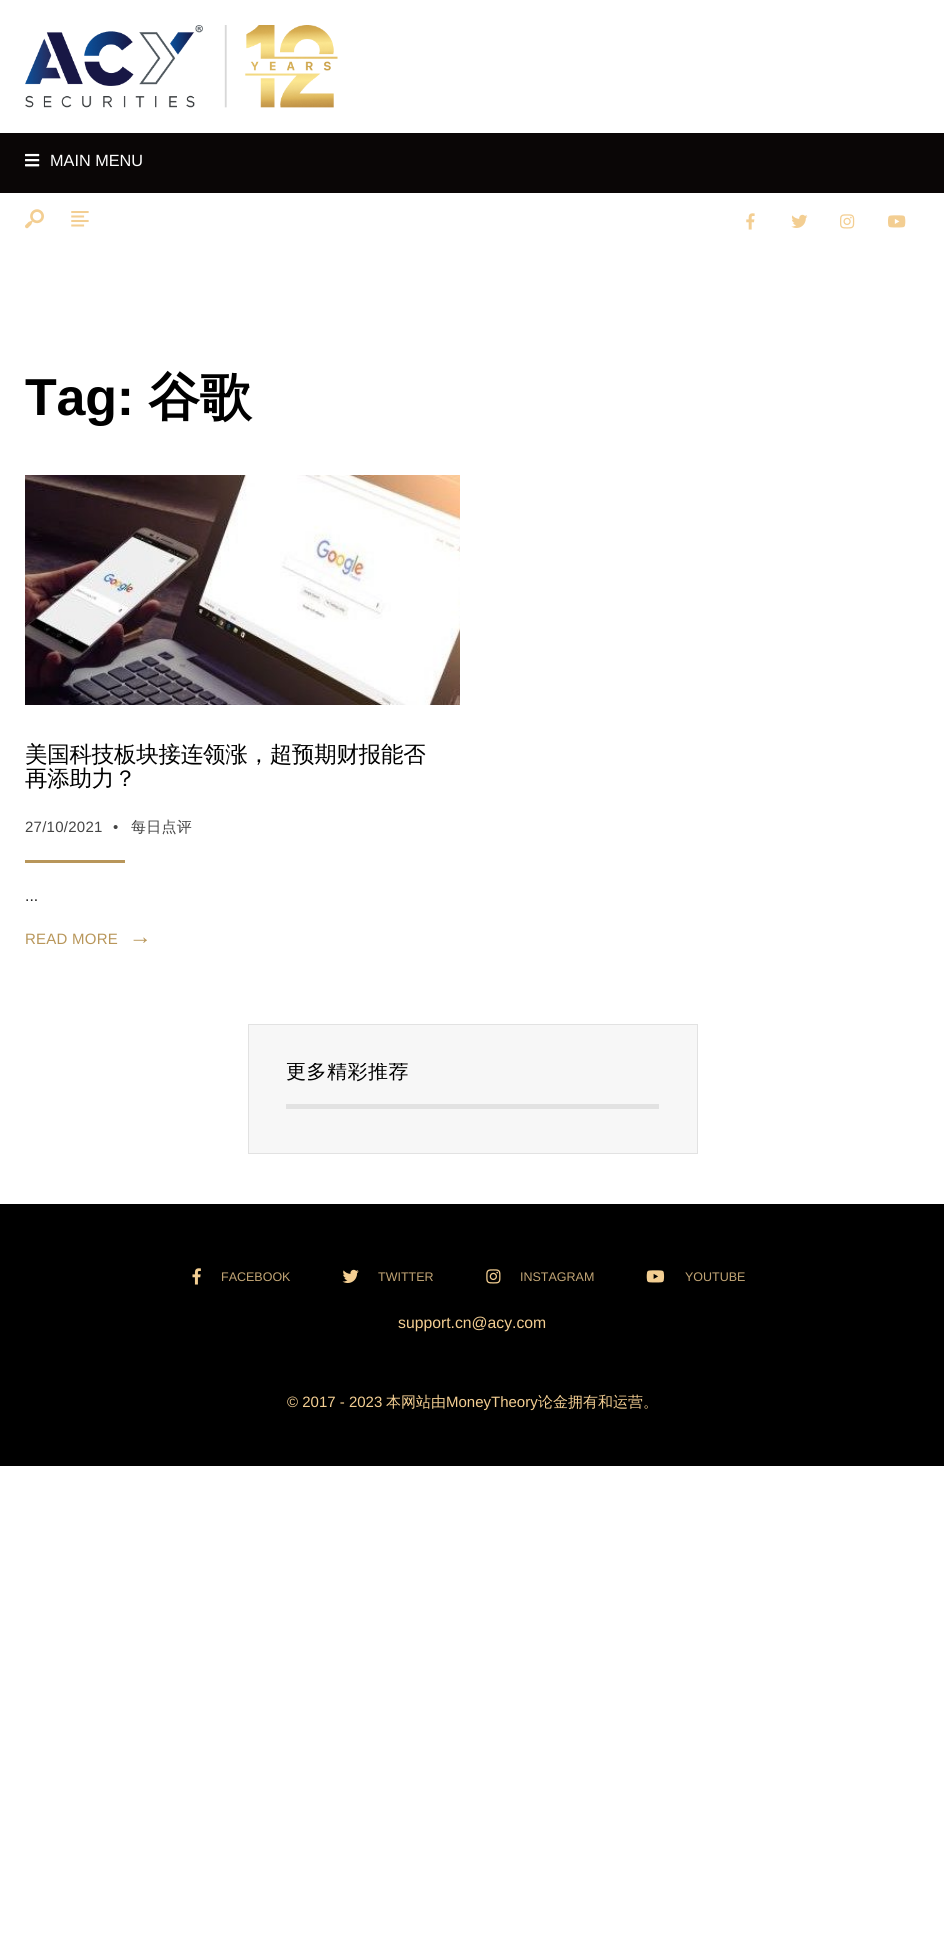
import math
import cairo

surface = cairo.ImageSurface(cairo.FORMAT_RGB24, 944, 1948)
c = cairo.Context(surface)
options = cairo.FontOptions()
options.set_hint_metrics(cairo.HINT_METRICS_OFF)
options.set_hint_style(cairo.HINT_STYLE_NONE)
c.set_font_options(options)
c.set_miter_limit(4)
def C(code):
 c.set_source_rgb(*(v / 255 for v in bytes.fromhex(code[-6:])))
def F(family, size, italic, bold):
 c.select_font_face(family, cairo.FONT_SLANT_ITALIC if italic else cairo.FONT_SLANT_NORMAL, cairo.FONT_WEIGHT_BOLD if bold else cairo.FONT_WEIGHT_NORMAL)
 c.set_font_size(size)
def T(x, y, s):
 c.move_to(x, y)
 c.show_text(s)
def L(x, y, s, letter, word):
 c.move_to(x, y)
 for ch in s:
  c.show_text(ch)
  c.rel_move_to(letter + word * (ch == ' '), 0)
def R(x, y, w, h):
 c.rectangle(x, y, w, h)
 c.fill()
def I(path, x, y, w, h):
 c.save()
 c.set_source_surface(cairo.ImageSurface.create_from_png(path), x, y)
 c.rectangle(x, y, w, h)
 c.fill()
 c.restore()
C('ffffff')
c.paint()
I('1.png',25,25,313,83)
C('0a0606')
R(0,133,944,60)
I('2.png',25,153,15,14)
F('Liberation Sans',16.25,0,0)
C('ffffff')
T(50,166,'MAIN MENU')
I('3.png',25,209,19,20)
I('4.png',71,211,18,16)
I('5.png',746,213,9,17)
I('6.png',791,214,17,14)
I('7.png',840,214,15,15)
I('8.png',888,215,18,13)
F('Liberation Sans',52,0,1)
C('000000')
L(25,415,'Tag:',-.25,0)
F('WenQuanYi Zen Hei',52,0,1)
L(148,415,'谷歌',-.25,0)
I('9.png',25,475,435,230)
F('WenQuanYi Zen Hei Medium',22.5,0,0)
L(25,762,'美国科技板块接连领涨，超预期财报能否',-.25,0)
L(25,786,'再添助力？',-.25,0)
F('Liberation Sans',15,0,0)
C('444444')
L(25,832,'27/10/2021',.25,0)
L(113,832,'•',.25,0)
F('WenQuanYi Zen Hei Medium',15,0,0)
L(131,832,'每日点评',.25,0)
C('b8965a')
R(25,860,100,3)
F('Liberation Sans',15.75,0,0)
C('1e1e1e')
T(25,901,'...')
F('Liberation Sans',15,0,0)
C('b8965a')
L(25,944,'READ MORE',.25,0)
F('Liberation Sans',22.5,0,0)
L(129,944,'→',.25,0)
C('f7f7f7')
c.rectangle(248.5,1024.5,449,129)
c.fill_preserve()
C('e2e2e2')
c.set_line_width(1)
c.stroke()
R(286,1104,373,5)
c.save()
c.rectangle(286,1063,373,41)
c.clip()
F('WenQuanYi Zen Hei Medium',20,0,0)
C('000000')
L(286,1078,'更多精彩推荐',.5,0)
c.restore()
C('000000')
R(0,1204,944,262)
I('10.png',192,1268,9,17)
F('Liberation Sans',12.5,0,0)
C('c2a575')
T(221,1281,'FACEBOOK')
I('11.png',342,1269,17,14)
T(378,1281,'TWITTER')
I('12.png',486,1269,15,15)
T(520,1281,'INSTAGRAM')
I('13.png',646,1270,19,13)
T(685,1281,'YOUTUBE')
F('Liberation Sans',15.75,0,0)
C('f3ce92')
T(398,1328,'support.cn@acy.com')
F('Liberation Sans',15,0,0)
T(287,1407,'© 2017 - 2023')
F('WenQuanYi Zen Hei Medium',15,0,0)
T(386,1407,'本网站由')
F('Liberation Sans',15,0,0)
T(446,1407,'MoneyTheory')
F('WenQuanYi Zen Hei Medium',15,0,0)
T(538,1407,'论金拥有和运营。')
surface.write_to_png('o.png')
